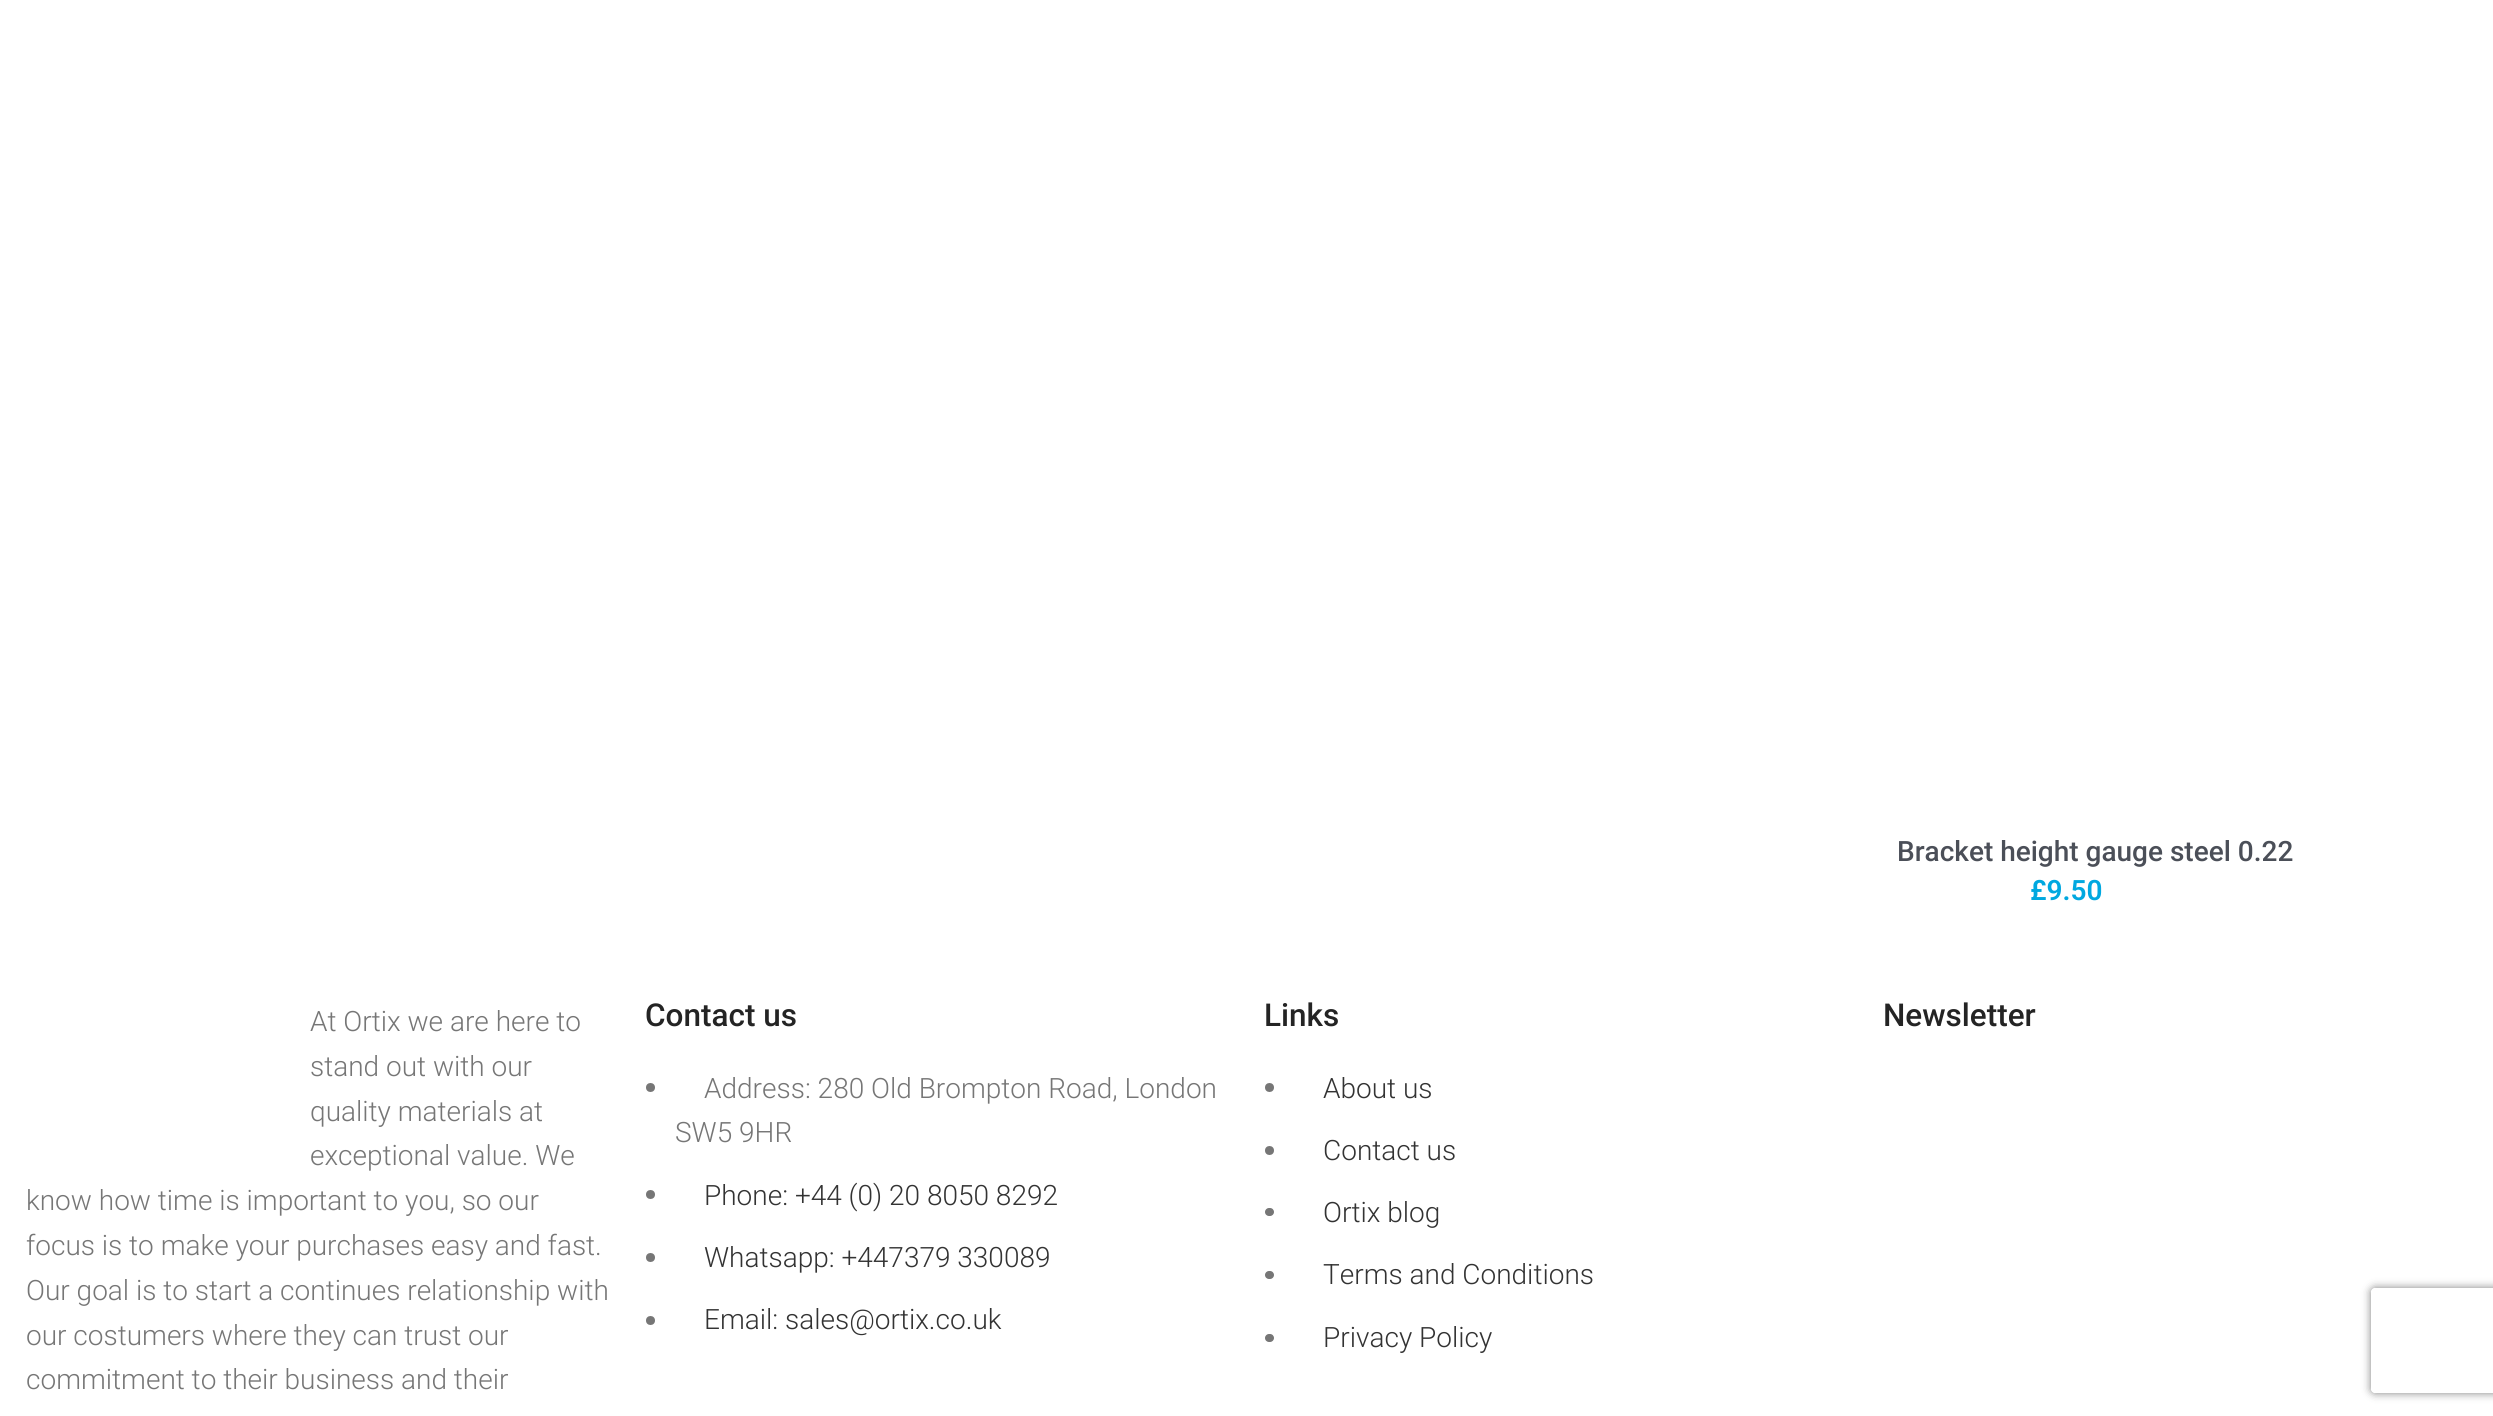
import math
import cairo

surface = cairo.ImageSurface(cairo.FORMAT_RGB24, 2493, 1416)
c = cairo.Context(surface)
options = cairo.FontOptions()
options.set_hint_metrics(cairo.HINT_METRICS_OFF)
options.set_hint_style(cairo.HINT_STYLE_NONE)
c.set_font_options(options)
c.set_miter_limit(4)
def C(code):
 c.set_source_rgb(*(v / 255 for v in bytes.fromhex(code[-6:])))
def F(family, size, italic, bold):
 c.select_font_face(family, cairo.FONT_SLANT_ITALIC if italic else cairo.FONT_SLANT_NORMAL, cairo.FONT_WEIGHT_BOLD if bold else cairo.FONT_WEIGHT_NORMAL)
 c.set_font_size(size)
def T(x, y, s):
 c.move_to(x, y)
 c.show_text(s)
def Q(x, y, w, h, r):
 c.new_sub_path()
 for i, (u, v) in enumerate([(x + w - r, y + h - r), (x + r, y + h - r), (x + r, y + r), (x + w - r, y + r)]):
  c.arc(u, v, r, i * math.pi / 2, (i + 1) * math.pi / 2)
 c.close_path()
def S(x, y, w, h, r, blur, alpha):
 c.push_group_with_content(cairo.CONTENT_ALPHA)
 c.set_operator(cairo.OPERATOR_SOURCE)
 for i in range(15, -16, -2):
  e = blur * i / 6
  if min(w, h) + 2 * e > 0:
   c.set_source_rgba(0, 0, 0, alpha * math.erfc((i - 1) / 8.5) / 2)
   Q(x - e, y - e, w + 2 * e, h + 2 * e, max(0, min(r + e + blur * .6, min(w, h) / 2 + e)))
   c.fill()
 c.mask(c.pop_group())
C('ffffff')
c.paint()
F('Roboto Medium',28,0,0)
C('4b4f58')
T(1897,861,'Bracket height gauge steel 0.22')
F('Roboto SemiBold',28,0,0)
C('00a8e0')
T(2030,900,'£9.50')
F('Roboto Light',28,0,0)
C('767676')
T(310,1031,'At Ortix we are here to')
T(310,1076,'stand out with our')
T(310,1121,'quality materials at')
T(310,1165,'exceptional value. We')
T(26,1210,'know how time is important to you, so our')
T(26,1255,'focus is to make your purchases easy and fast.')
T(26,1300,'Our goal is to start a continues relationship with')
T(26,1345,'our costumers where they can trust our')
T(26,1389,'commitment to their business and their')
F('Roboto Medium',31.5,0,0)
C('242424')
T(645,1026,'Contact us')
C('767676')
c.new_path()
c.arc(650.5,1087.5,4.5,0,2 * math.pi)
c.fill()
F('Roboto Light',28,0,0)
T(704,1098,'Address: 280 Old Brompton Road, London')
T(675,1142,'SW5 9HR')
c.new_path()
c.arc(650.5,1194.5,4.5,0,2 * math.pi)
c.fill()
C('333333')
T(704,1205,'Phone: +44 (0) 20 8050 8292')
C('767676')
c.new_path()
c.arc(650.5,1257.5,4.5,0,2 * math.pi)
c.fill()
C('333333')
T(704,1267,'Whatsapp: +447379 330089')
C('767676')
c.new_path()
c.arc(650.5,1320.5,4.5,0,2 * math.pi)
c.fill()
C('333333')
T(704,1329,'Email: sales@ortix.co.uk')
F('Roboto Medium',31.5,0,0)
C('242424')
T(1264,1026,'Links')
C('767676')
c.new_path()
c.arc(1269.5,1087.5,4.5,0,2 * math.pi)
c.fill()
F('Roboto Light',28,0,0)
C('333333')
T(1323,1098,'About us')
C('767676')
c.new_path()
c.arc(1269.5,1150.5,4.5,0,2 * math.pi)
c.fill()
C('333333')
T(1323,1160,'Contact us')
C('767676')
Q(1265,1208,9,8,4)
c.fill()
C('333333')
T(1323,1222,'Ortix blog')
C('767676')
Q(1265,1271,9,8,4)
c.fill()
C('333333')
T(1323,1284,'Terms and Conditions')
C('767676')
Q(1265,1334,9,8,4)
c.fill()
C('333333')
T(1323,1347,'Privacy Policy')
F('Roboto Medium',31.5,0,0)
C('242424')
T(1883,1026,'Newsletter')
c.save()
c.set_fill_rule(cairo.FILL_RULE_EVEN_ODD)
c.new_path()
c.move_to(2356,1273)
c.line_to(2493,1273)
c.line_to(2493,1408)
c.line_to(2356,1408)
c.close_path()
c.move_to(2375,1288)
c.line_to(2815,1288)
c.curve_to(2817,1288,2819,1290,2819,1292)
c.line_to(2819,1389)
c.curve_to(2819,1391,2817,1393,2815,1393)
c.line_to(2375,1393)
c.curve_to(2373,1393,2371,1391,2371,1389)
c.line_to(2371,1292)
c.curve_to(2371,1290,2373,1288,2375,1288)
c.close_path()
c.clip()
C('808080')
S(2371,1288,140,105,4,4.5,1)
c.restore()
surface.write_to_png('o.png')
